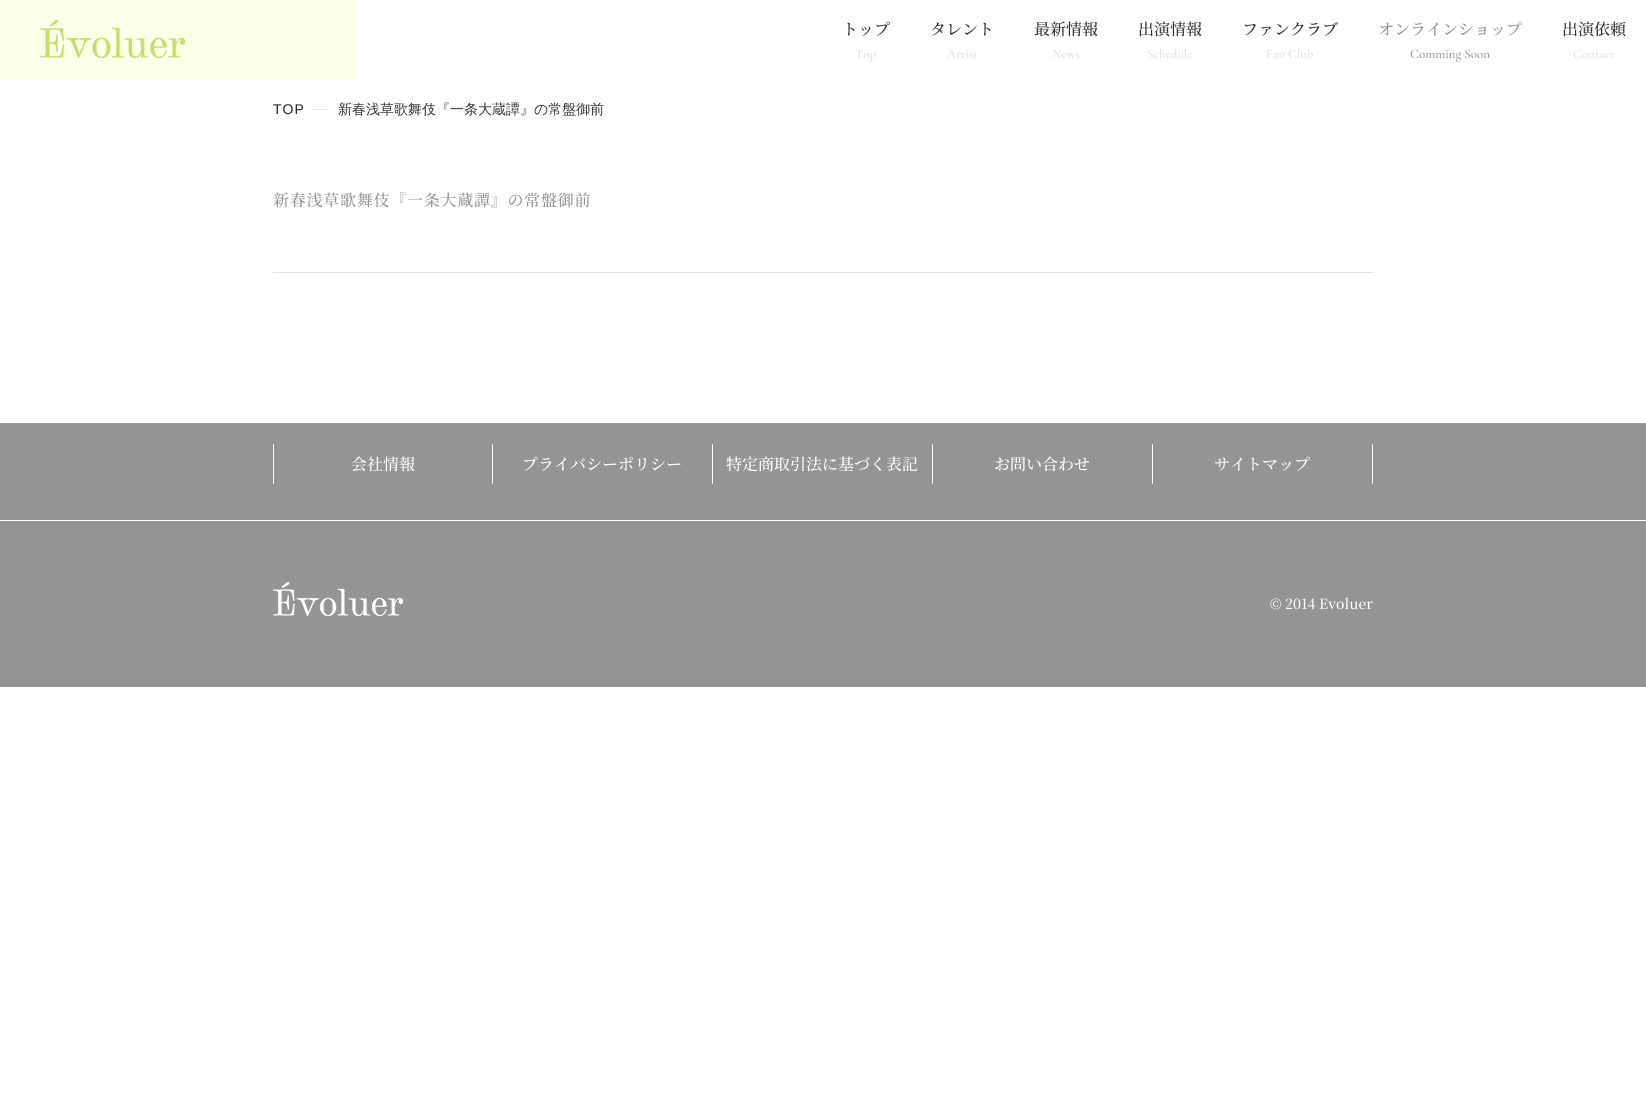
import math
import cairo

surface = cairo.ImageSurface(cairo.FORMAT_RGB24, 1646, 1099)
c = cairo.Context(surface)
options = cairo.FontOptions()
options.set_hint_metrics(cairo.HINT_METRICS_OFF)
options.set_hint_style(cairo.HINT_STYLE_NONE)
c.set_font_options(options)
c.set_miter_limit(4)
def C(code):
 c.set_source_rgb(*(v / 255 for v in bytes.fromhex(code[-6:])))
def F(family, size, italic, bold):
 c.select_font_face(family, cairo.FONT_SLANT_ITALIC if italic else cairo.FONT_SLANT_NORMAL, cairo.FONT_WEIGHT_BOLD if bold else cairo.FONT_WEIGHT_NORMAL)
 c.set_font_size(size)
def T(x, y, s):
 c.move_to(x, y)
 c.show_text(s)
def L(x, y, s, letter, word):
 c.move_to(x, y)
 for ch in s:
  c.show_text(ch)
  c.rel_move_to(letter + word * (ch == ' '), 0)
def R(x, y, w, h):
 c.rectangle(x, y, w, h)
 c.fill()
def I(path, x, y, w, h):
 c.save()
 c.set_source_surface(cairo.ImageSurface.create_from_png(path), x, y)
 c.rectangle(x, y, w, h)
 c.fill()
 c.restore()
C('ffffff')
c.paint()
C('fbffe5')
R(0,0,356,80)
I('1.png',40,20,145,38)
F('Noto Serif JP Medium',16,0,0)
C('333333')
T(842,35,'トップ')
F('Cormorant Garamond Medium',13,0,0)
C('dddddd')
T(855,58,'Top')
F('Noto Serif JP Medium',16,0,0)
C('333333')
T(930,35,'タレント')
F('Cormorant Garamond Medium',13,0,0)
C('dddddd')
T(947,58,'Artist')
F('Noto Serif JP Medium',16,0,0)
C('333333')
T(1034,35,'最新情報')
F('Cormorant Garamond Medium',13,0,0)
C('dddddd')
T(1052,58,'News')
F('Noto Serif JP Medium',16,0,0)
C('333333')
T(1138,35,'出演情報')
F('Cormorant Garamond Medium',13,0,0)
C('dddddd')
T(1147,58,'Schedule')
F('Noto Serif JP Medium',16,0,0)
C('333333')
T(1242,35,'ファンクラブ')
F('Cormorant Garamond Medium',13,0,0)
C('dddddd')
T(1266,58,'Fan Club')
F('Noto Serif JP Medium',16,0,0)
C('959594')
T(1378,35,'オンラインショップ')
F('Cormorant Garamond Medium',13,0,0)
T(1410,58,'Comming Soon')
F('Noto Serif JP Medium',16,0,0)
C('333333')
T(1562,35,'出演依頼')
F('Cormorant Garamond Medium',13,0,0)
C('dddddd')
T(1573,58,'Contact')
F('Liberation Sans',14,0,0)
C('222222')
L(273,114,'TOP',1,0)
C('e3e3e3')
R(313,109,15,1)
F('WenQuanYi Zen Hei Medium',14,0,0)
C('333333')
T(338,114,'新春浅草歌舞伎『一条大蔵譚』の常盤御前')
C('e3e3e3')
R(273,272,1100,1)
F('Noto Serif JP Medium',16,0,0)
C('959594')
L(273,206,'新春浅草歌舞伎『一条大蔵譚』の常盤御前',.75,0)
R(0,423,1646,264)
C('ffffff')
R(0,520,1646,1)
R(492,444,1,40)
R(273,444,1,40)
T(351,470,'会社情報')
R(712,444,1,40)
T(522,470,'プライバシーポリシー')
R(932,444,1,40)
T(726,470,'特定商取引法に基づく表記')
R(1152,444,1,40)
T(994,470,'お問い合わせ')
R(1372,444,1,40)
T(1214,470,'サイトマップ')
I('2.png',273,582,130,34)
F('Noto Serif JP Medium',14,0,0)
T(1270,609,'© 2014 Evoluer')
surface.write_to_png('o.png')
